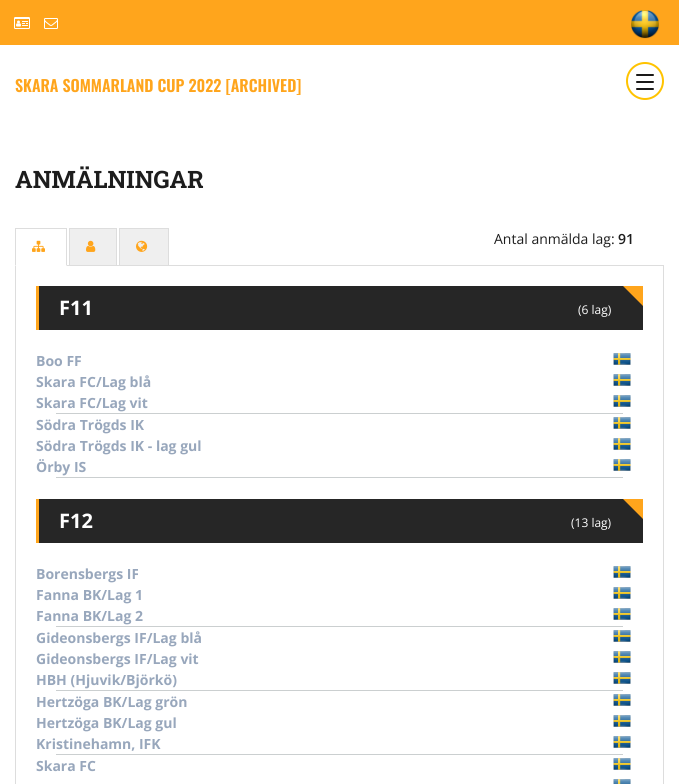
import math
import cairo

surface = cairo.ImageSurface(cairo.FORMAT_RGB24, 679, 784)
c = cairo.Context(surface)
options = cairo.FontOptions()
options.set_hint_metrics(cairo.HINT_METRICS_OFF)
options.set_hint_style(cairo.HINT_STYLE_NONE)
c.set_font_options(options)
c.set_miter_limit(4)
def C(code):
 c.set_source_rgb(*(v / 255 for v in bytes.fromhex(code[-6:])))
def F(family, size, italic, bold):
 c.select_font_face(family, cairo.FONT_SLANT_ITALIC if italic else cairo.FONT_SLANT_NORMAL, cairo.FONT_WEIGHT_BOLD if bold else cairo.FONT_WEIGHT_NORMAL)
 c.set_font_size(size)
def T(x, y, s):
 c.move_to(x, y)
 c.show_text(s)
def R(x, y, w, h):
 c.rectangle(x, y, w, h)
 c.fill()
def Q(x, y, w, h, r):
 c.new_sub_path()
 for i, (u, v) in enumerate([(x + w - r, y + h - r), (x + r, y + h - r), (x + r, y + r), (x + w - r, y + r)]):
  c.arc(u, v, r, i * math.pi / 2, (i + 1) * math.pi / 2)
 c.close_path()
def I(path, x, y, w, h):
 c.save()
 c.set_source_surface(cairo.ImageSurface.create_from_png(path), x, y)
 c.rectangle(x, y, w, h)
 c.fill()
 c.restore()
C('ffffff')
c.paint()
C('ffa51c')
R(0,0,679,45)
I('1.png',14,17,16,12)
I('2.png',44,18,14,11)
I('3.png',631,10,29,29)
F('Oswald SemiBold',16,0,0)
T(15,92,'SKARA SOMMARLAND CUP 2022 [ARCHIVED]')
c.new_path()
c.arc(645,81,18,0,2 * math.pi)
C('ffc300')
c.stroke()
C('1a1919')
Q(636,74,18,2,1)
c.fill()
Q(636,81,18,2,1)
c.fill()
Q(636,88,18,2,1)
c.fill()
F('Roboto Slab',24,0,1)
C('1d1d1d')
T(15,188,'ANMÄLNINGAR')
F('Open Sans',14,0,0)
T(494,244,'Antal anmälda lag:')
F('Open Sans SemiBold',14,0,0)
T(618,244,'91')
c.rectangle(15.5,265.5,648,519)
C('dddddd')
c.set_line_width(1)
c.stroke()
C('ffffff')
R(15,265,52,1)
C('dddddd')
R(15,228,52,1)
c.new_path()
c.move_to(67,228)
c.line_to(67,266)
c.line_to(66,265)
c.line_to(66,229)
c.close_path()
c.move_to(15,266)
c.line_to(15,228)
c.line_to(16,229)
c.line_to(16,265)
c.close_path()
c.fill()
I('4.png',32,240,13,12)
C('efefef')
c.rectangle(69.5,228.5,47,37)
c.fill_preserve()
C('dddddd')
c.stroke()
I('5.png',86,240,10,12)
C('efefef')
c.rectangle(119.5,228.5,49,37)
c.fill_preserve()
C('dddddd')
c.stroke()
I('6.png',136,240,12,12)
C('262626')
R(39,286,604,44)
C('ffa51c')
R(36,286,3,44)
c.new_path()
c.move_to(623,286)
c.line_to(643,286)
c.line_to(643,306)
c.close_path()
c.fill()
F('Open Sans',20,0,1)
C('ffffff')
T(59,315,'F11')
F('Open Sans',12,0,0)
T(578,314,'(6 lag)')
F('Open Sans',14,0,1)
C('98a7bc')
T(36,366,'Boo FF')
I('7.png',613,353,18,12)
T(36,387,'Skara FC/Lag blå')
I('7.png',613,374,18,12)
T(36,408,'Skara FC/Lag vit')
I('7.png',613,395,18,12)
C('cbcfd0')
R(56,413,567,1)
C('98a7bc')
T(36,430,'Södra Trögds IK')
I('7.png',613,417,18,12)
T(36,451,'Södra Trögds IK - lag gul')
I('7.png',613,438,18,12)
T(36,472,'Örby IS')
I('7.png',613,459,18,12)
C('cbcfd0')
R(56,477,567,1)
C('262626')
R(39,499,604,44)
C('ffa51c')
R(36,499,3,44)
c.new_path()
c.move_to(623,499)
c.line_to(643,499)
c.line_to(643,519)
c.close_path()
c.fill()
F('Open Sans',20,0,1)
C('ffffff')
T(59,528,'F12')
F('Open Sans',12,0,0)
T(571,527,'(13 lag)')
F('Open Sans',14,0,1)
C('98a7bc')
T(36,579,'Borensbergs IF')
I('7.png',613,566,18,12)
T(36,600,'Fanna BK/Lag 1')
I('7.png',613,587,18,12)
T(36,621,'Fanna BK/Lag 2')
I('7.png',613,608,18,12)
C('cbcfd0')
R(56,626,567,1)
C('98a7bc')
T(36,643,'Gideonsbergs IF/Lag blå')
I('7.png',613,630,18,12)
T(36,664,'Gideonsbergs IF/Lag vit')
I('7.png',613,651,18,12)
T(36,685,'HBH (Hjuvik/Björkö)')
I('7.png',613,672,18,12)
C('cbcfd0')
R(56,690,567,1)
C('98a7bc')
T(36,707,'Hertzöga BK/Lag grön')
I('7.png',613,694,18,12)
T(36,728,'Hertzöga BK/Lag gul')
I('7.png',613,715,18,12)
T(36,749,'Kristinehamn, IFK')
I('7.png',613,736,18,12)
C('cbcfd0')
R(56,754,567,1)
C('98a7bc')
T(36,771,'Skara FC')
I('7.png',613,758,18,12)
I('8.png',613,779,18,5)
surface.write_to_png('o.png')
